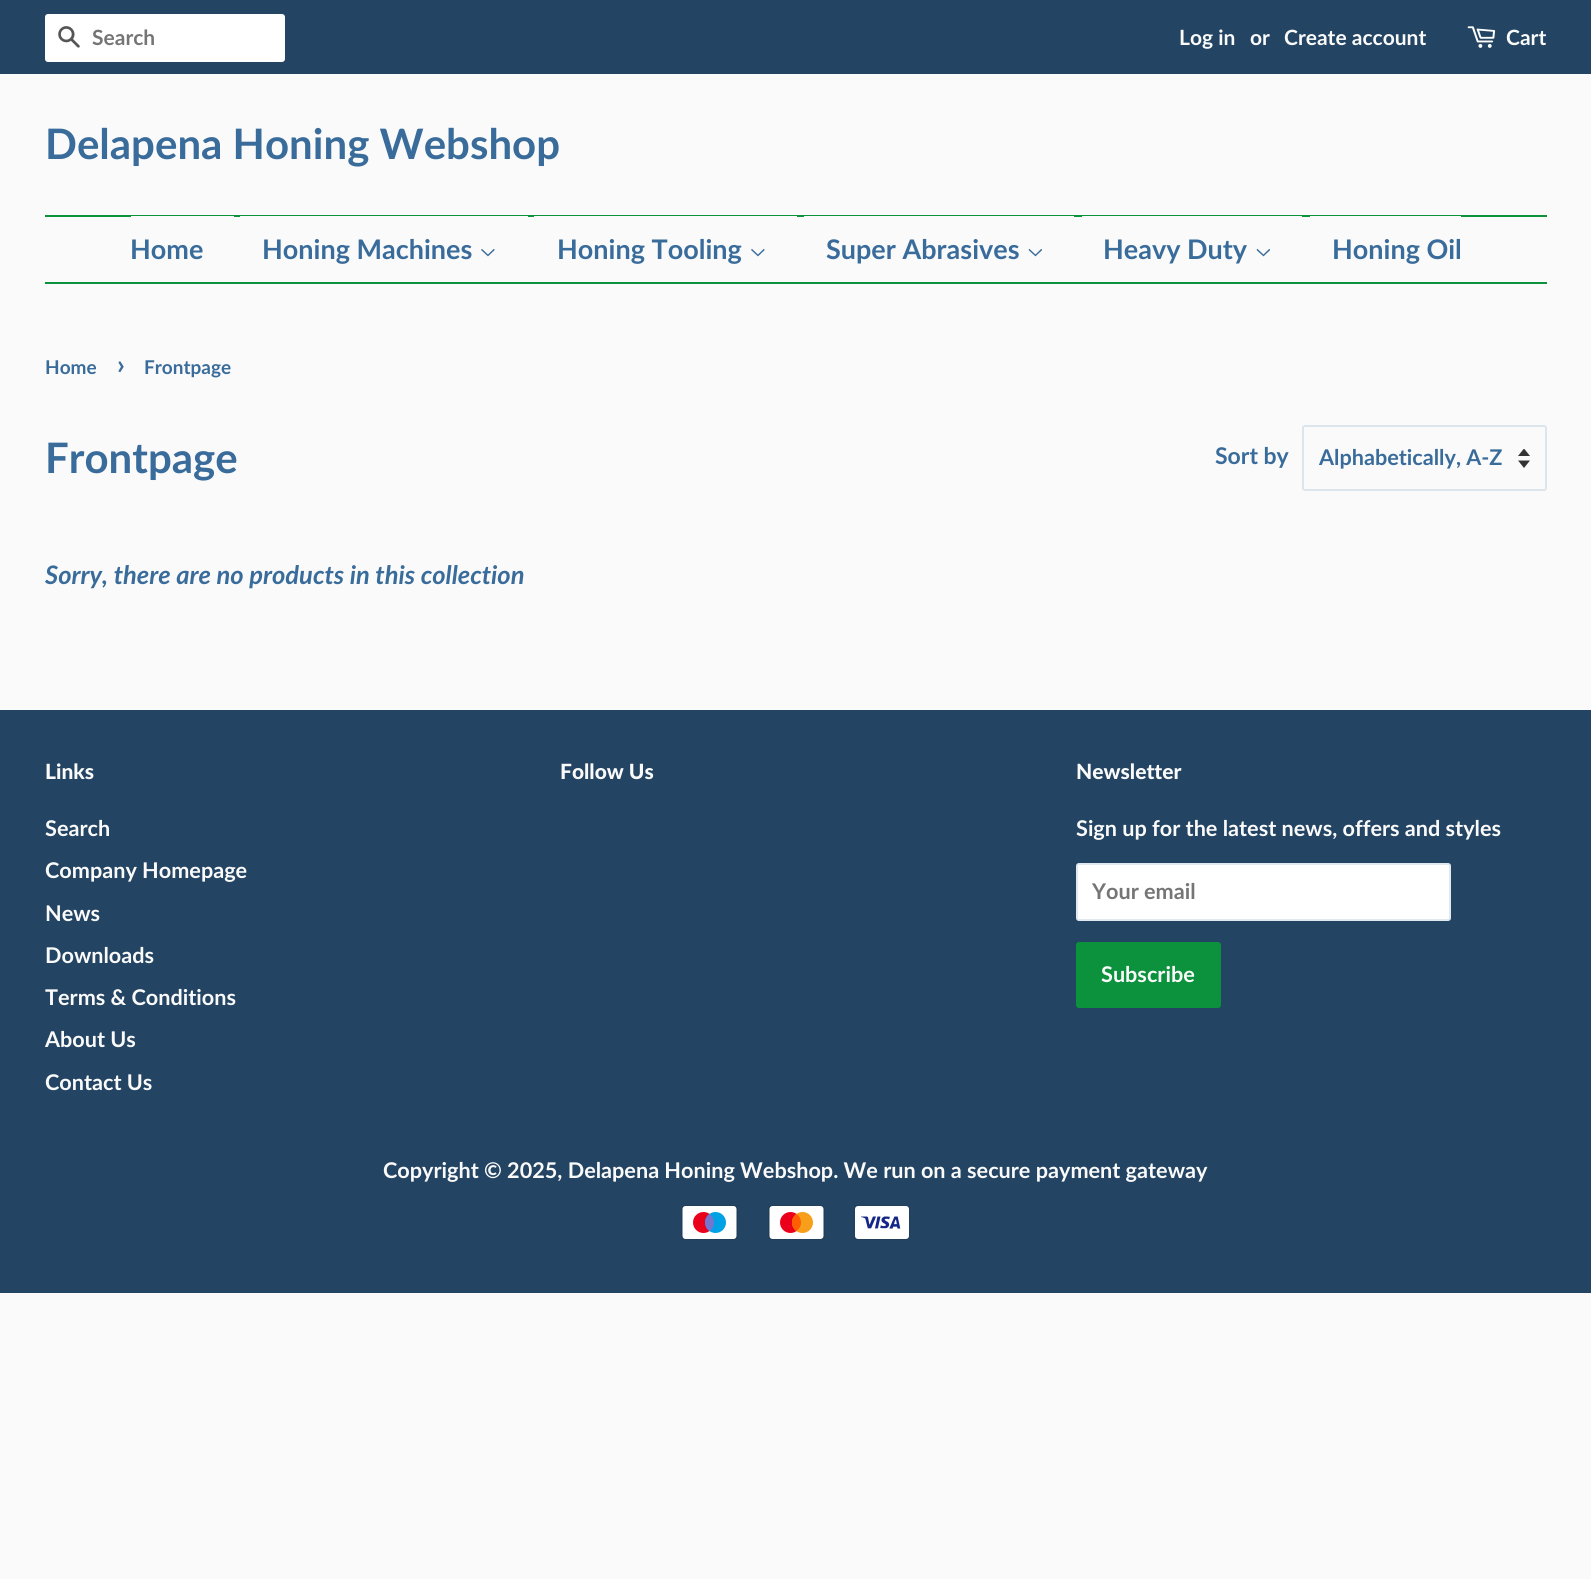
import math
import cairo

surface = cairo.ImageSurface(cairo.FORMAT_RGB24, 1591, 1579)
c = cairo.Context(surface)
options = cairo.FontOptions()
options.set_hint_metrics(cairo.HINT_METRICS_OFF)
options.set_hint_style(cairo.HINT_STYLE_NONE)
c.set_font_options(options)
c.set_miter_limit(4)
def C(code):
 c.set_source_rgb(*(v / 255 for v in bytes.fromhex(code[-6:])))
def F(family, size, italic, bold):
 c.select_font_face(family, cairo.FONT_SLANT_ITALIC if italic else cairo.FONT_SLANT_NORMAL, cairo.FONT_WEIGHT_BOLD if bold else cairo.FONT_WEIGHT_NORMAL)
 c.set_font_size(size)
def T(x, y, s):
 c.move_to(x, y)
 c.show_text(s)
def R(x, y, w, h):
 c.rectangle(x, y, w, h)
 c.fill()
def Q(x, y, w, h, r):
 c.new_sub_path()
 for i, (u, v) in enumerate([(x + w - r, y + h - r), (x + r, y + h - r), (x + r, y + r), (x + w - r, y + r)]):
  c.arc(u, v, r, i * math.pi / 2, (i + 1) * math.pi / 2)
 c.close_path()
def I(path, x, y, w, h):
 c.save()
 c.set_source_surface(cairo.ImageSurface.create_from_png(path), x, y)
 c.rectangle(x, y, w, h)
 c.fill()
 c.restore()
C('fafafa')
c.paint()
C('234462')
R(0,0,1591,74)
C('ffffff')
Q(45,14,240,48,3)
c.fill()
I('1.png',58,26,22,22)
F('Lato',21,0,1)
C('757575')
T(92,45,'Search')
C('fafafa')
T(1179,45,'Log in')
T(1250,45,'or')
T(1284,45,'Create account')
I('2.png',1467,26,29,22)
T(1506,45,'Cart')
F('Lato',42,0,1)
C('396c9b')
T(45,159,'Delapena Honing Webshop')
C('0c913c')
R(45,215,1502,2)
R(45,282,1502,2)
C('fafafa')
R(131,216,103,1)
F('Lato',27,0,1)
C('396c9b')
T(130,259,'Home')
C('fafafa')
R(240,216,288,1)
C('396c9b')
T(262,259,'Honing Machines')
I('3.png',481,248,14,9)
C('fafafa')
R(534,216,263,1)
C('396c9b')
T(557,259,'Honing Tooling')
I('3.png',751,248,14,9)
C('fafafa')
R(804,216,270,1)
C('396c9b')
T(826,259,'Super Abrasives')
I('4.png',1028,248,14,9)
C('fafafa')
R(1082,216,220,1)
C('396c9b')
T(1103,259,'Heavy Duty')
I('4.png',1256,248,14,9)
C('fafafa')
R(1310,216,151,1)
C('396c9b')
T(1332,259,'Honing Oil')
F('Lato',19,0,1)
T(45,374,'Home')
F('Lato',27,0,1)
T(117,374,'›')
F('Lato',19,0,1)
T(144,374,'Frontpage')
F('Lato',42,0,1)
T(45,473,'Frontpage')
F('Lato',23,0,1)
T(1215,464,'Sort by')
I('5.png',1518,449,12,19)
Q(1303,426,243,64,2)
C('dde5ec')
c.stroke()
F('Lato',21.65,0,1)
C('396c9b')
T(1319,465,'Alphabetically, A-Z')
F('Lato',25.5,1,1)
T(45,584,'Sorry, there are no products in this collection')
C('234462')
R(0,710,1591,583)
F('Lato Black',21,0,0)
C('fafafa')
T(45,779,'Links')
F('Lato',21.65,0,1)
T(45,836,'Search')
T(45,878,'Company Homepage')
T(45,921,'News')
T(45,963,'Downloads')
T(45,1005,'Terms & Conditions')
T(45,1047,'About Us')
T(45,1090,'Contact Us')
F('Lato Black',21,0,0)
T(560,779,'Follow Us')
T(1076,779,'Newsletter')
F('Lato',21.65,0,1)
T(1076,836,'Sign up for the latest news, offers and styles')
C('ffffff')
Q(1076,863,375,58,3)
c.fill()
Q(1077,864,373,56,2)
c.set_source_rgba(0.224,0.424,0.608,0.15)
c.stroke()
C('757575')
T(1092,899,'Your email')
C('0c913c')
Q(1076,942,145,66,3)
c.fill()
C('fafafa')
T(1101,982,'Subscribe')
T(383,1178,'Copyright © 2025, Delapena Honing Webshop. We run on a secure payment gateway')
I('6.png',681,1205,57,35)
I('7.png',768,1205,57,35)
I('8.png',854,1205,56,35)
surface.write_to_png('o.png')
